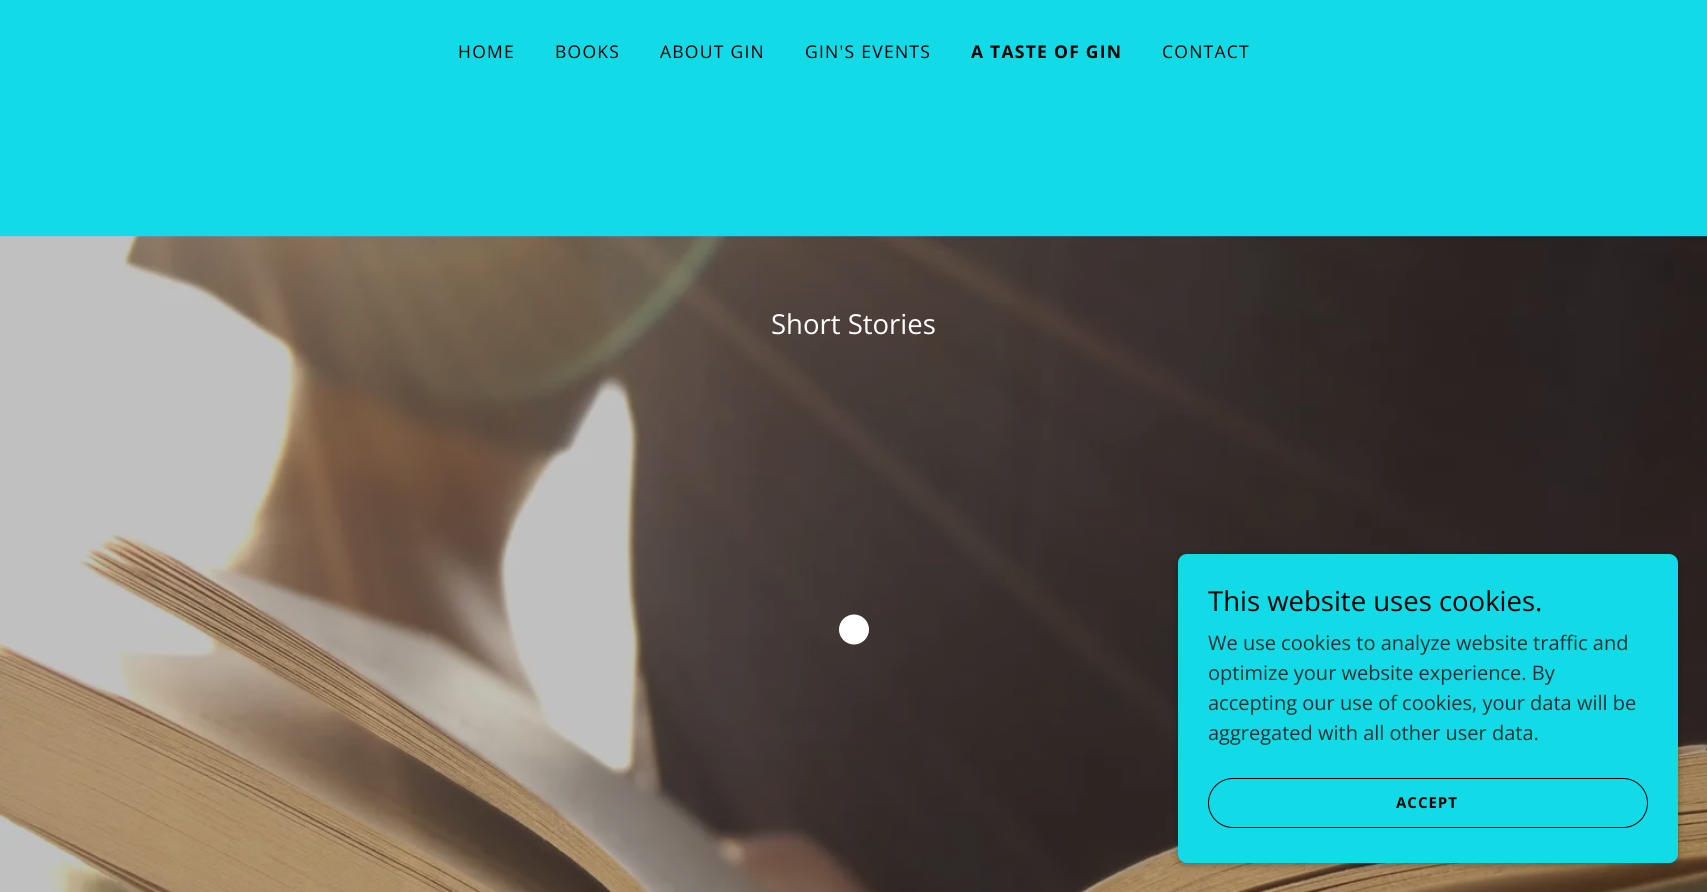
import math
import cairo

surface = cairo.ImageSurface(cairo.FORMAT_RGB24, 1707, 892)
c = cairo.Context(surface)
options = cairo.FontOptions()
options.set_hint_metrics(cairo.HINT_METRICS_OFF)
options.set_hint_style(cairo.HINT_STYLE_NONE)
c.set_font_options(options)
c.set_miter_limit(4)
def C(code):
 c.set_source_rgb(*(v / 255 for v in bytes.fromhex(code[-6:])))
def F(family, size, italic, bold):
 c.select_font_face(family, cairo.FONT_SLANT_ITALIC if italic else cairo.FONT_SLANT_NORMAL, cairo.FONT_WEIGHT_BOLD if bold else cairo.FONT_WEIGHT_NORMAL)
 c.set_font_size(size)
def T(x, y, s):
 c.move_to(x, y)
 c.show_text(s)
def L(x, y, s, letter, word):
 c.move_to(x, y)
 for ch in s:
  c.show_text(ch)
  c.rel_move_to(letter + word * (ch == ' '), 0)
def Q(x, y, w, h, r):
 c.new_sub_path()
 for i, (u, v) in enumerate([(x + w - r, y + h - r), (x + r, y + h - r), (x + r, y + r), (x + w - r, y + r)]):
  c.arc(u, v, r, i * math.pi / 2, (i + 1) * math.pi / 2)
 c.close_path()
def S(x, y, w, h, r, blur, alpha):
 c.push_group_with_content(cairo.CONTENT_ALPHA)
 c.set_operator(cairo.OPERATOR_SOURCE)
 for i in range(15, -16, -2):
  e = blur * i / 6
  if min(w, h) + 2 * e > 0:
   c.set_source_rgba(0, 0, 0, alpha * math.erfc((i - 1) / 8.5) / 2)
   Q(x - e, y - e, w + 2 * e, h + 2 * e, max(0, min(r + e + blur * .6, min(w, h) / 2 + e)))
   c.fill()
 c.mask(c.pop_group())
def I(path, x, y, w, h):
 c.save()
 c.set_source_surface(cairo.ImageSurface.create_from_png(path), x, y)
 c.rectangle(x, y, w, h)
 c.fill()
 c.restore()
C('12dae7')
c.paint()
F('Open Sans',17.5,0,0)
C('000000')
L(458,58,'HOME',1.25,0)
L(555,58,'BOOKS',1.25,0)
L(660,58,'ABOUT GIN',1.25,0)
L(805,58,'GIN\'S EVENTS',1.25,0)
F('Open Sans',17.5,0,1)
L(971,58,'A TASTE OF GIN',1.25,0)
F('Open Sans',17.5,0,0)
L(1162,58,'CONTACT',1.25,0)
I('1.png',0,236,1707,656)
F('Open Sans',27.5,0,0)
C('ffffff')
T(771,334,'Short Stories')
c.new_path()
c.arc(854,629.5,15,0,2 * math.pi)
c.fill()
C('000000')
S(1178,556,500,309,9,4,.3)
C('12dae7')
Q(1178,554,500,309,9)
c.fill()
C('000000')
T(1208,611,'This website uses cookies.')
F('Open Sans',20,0,0)
C('293132')
T(1208,650,'We use cookies to analyze website traffic and')
T(1208,680,'optimize your website experience. By')
T(1208,710,'accepting our use of cookies, your data will be')
T(1208,740,'aggregated with all other user data.')
Q(1208.5,778.5,439,49,24.5)
C('000000')
c.set_line_width(1)
c.stroke()
F('Open Sans',15,0,1)
L(1396,808,'ACCEPT',1,0)
surface.write_to_png('o.png')
